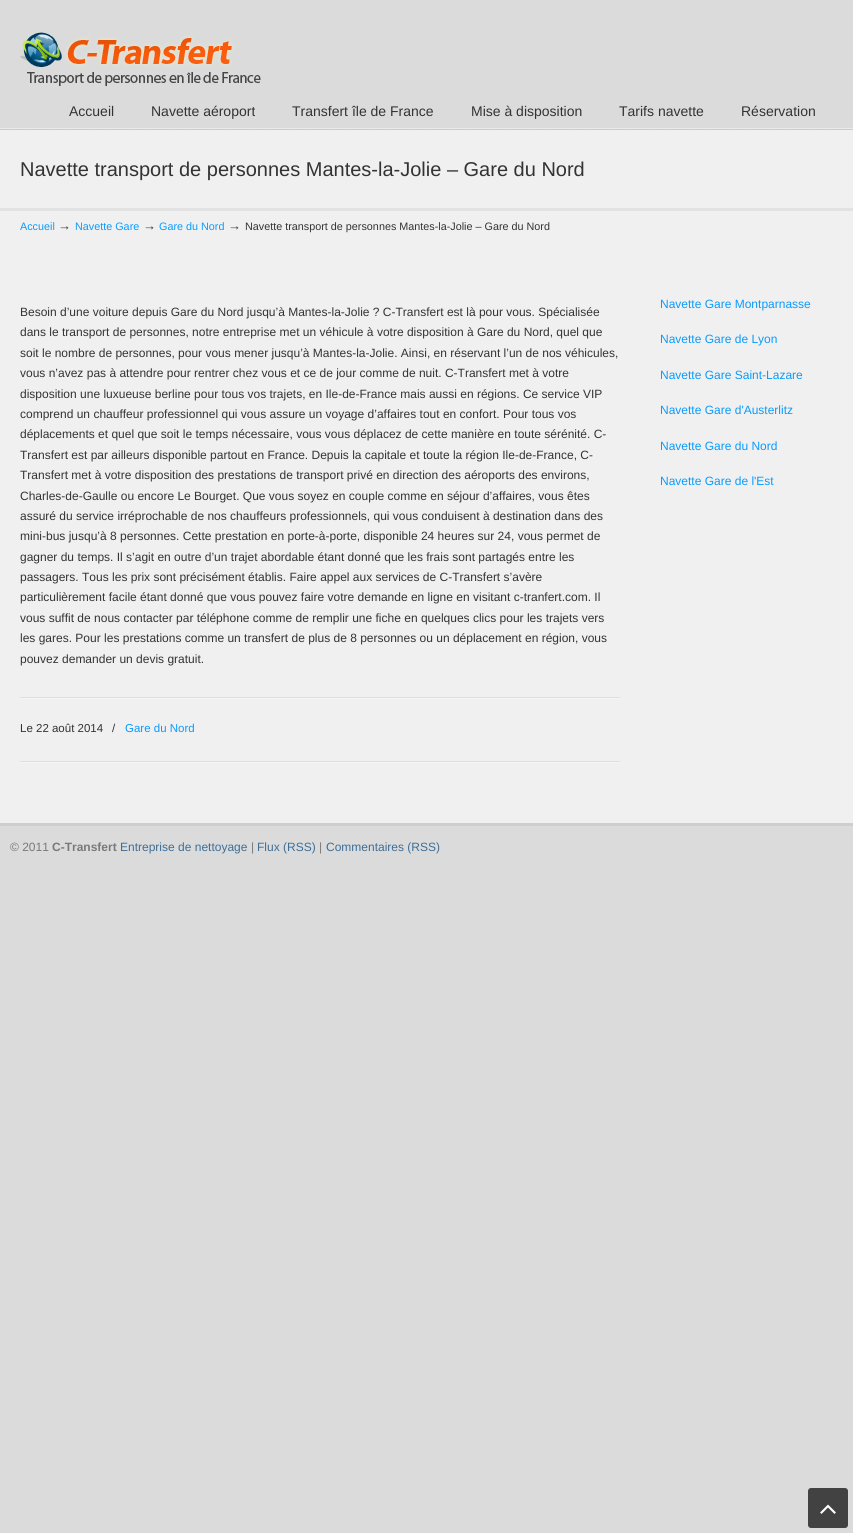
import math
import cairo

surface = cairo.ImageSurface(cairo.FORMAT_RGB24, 853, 1533)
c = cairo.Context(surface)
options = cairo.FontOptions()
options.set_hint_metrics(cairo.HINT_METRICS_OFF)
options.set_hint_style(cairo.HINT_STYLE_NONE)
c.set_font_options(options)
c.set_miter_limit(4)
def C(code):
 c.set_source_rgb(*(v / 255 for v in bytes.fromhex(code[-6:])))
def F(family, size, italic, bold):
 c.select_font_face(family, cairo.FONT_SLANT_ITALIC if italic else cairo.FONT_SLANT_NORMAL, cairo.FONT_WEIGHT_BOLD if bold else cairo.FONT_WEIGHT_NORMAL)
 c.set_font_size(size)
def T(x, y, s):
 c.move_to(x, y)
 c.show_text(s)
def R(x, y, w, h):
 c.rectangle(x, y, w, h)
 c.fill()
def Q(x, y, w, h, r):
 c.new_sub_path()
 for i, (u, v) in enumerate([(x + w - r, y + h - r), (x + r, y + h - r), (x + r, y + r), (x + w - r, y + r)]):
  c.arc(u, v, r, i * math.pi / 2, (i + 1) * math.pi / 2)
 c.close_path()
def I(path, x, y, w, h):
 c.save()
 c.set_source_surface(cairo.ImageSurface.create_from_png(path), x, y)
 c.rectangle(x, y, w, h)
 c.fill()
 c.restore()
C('dbdbdb')
c.paint()
I('1.png',20,32,241,54)
F('Liberation Sans',14,0,0)
C('333333')
T(69,116,'Accueil')
T(151,116,'Navette aéroport')
T(292,116,'Transfert île de France')
T(471,116,'Mise à disposition')
T(619,116,'Tarifs navette')
T(741,116,'Réservation')
I('2.png',0,128,853,2)
C('f0f0f0')
R(0,130,853,78)
F('Liberation Sans',20,0,0)
C('333333')
T(20,176,'Navette transport de personnes Mantes-la-Jolie – Gare du Nord')
C('f0f0f0')
R(0,211,853,612)
C('e2e2e2')
R(0,208,853,3)
F('Liberation Sans',10.8,0,0)
C('0a9bfc')
T(20,230,'Accueil')
F('Liberation Sans',13,0,0)
C('333333')
T(58,230,'→')
F('Liberation Sans',10.8,0,0)
C('0a9bfc')
T(75,230,'Navette Gare')
F('Liberation Sans',13,0,0)
C('333333')
T(143,230,'→')
F('Liberation Sans',10.8,0,0)
C('0a9bfc')
T(159,230,'Gare du Nord')
F('Liberation Sans',13,0,0)
C('333333')
T(228,230,'→')
F('Liberation Sans',10.8,0,0)
T(245,230,'Navette transport de personnes Mantes-la-Jolie – Gare du Nord')
F('Liberation Sans',12,0,0)
T(20,316,'Besoin d’une voiture depuis Gare du Nord jusqu’à Mantes-la-Jolie ? C-Transfert est là pour vous. Spécialisée')
T(20,336,'dans le transport de personnes, notre entreprise met un véhicule à votre disposition à Gare du Nord, quel que')
T(20,357,'soit le nombre de personnes, pour vous mener jusqu’à Mantes-la-Jolie. Ainsi, en réservant l’un de nos véhicules,')
T(20,377,'vous n’avez pas à attendre pour rentrer chez vous et ce de jour comme de nuit. C-Transfert met à votre')
T(20,398,'disposition une luxueuse berline pour tous vos trajets, en Ile-de-France mais aussi en régions. Ce service VIP')
T(20,418,'comprend un chauffeur professionnel qui vous assure un voyage d’affaires tout en confort. Pour tous vos')
T(20,438,'déplacements et quel que soit le temps nécessaire, vous vous déplacez de cette manière en toute sérénité. C-')
T(20,459,'Transfert est par ailleurs disponible partout en France. Depuis la capitale et toute la région Ile-de-France, C-')
T(20,479,'Transfert met à votre disposition des prestations de transport privé en direction des aéroports des environs,')
T(20,500,'Charles-de-Gaulle ou encore Le Bourget. Que vous soyez en couple comme en séjour d’affaires, vous êtes')
T(20,520,'assuré du service irréprochable de nos chauffeurs professionnels, qui vous conduisent à destination dans des')
T(20,540,'mini-bus jusqu’à 8 personnes. Cette prestation en porte-à-porte, disponible 24 heures sur 24, vous permet de')
T(20,561,'gagner du temps. Il s’agit en outre d’un trajet abordable étant donné que les frais sont partagés entre les')
T(20,581,'passagers. Tous les prix sont précisément établis. Faire appel aux services de C-Transfert s’avère')
T(20,601,'particulièrement facile étant donné que vous pouvez faire votre demande en ligne en visitant c-tranfert.com. Il')
T(20,622,'vous suffit de nous contacter par téléphone comme de remplir une fiche en quelques clics pour les trajets vers')
T(20,642,'les gares. Pour les prestations comme un transfert de plus de 8 personnes ou un déplacement en région, vous')
T(20,663,'pouvez demander un devis gratuit.')
I('3.png',20,697,600,2)
F('Liberation Sans',11.5,0,0)
T(20,732,'Le 22 août 2014')
T(112,732,'/')
C('0a9bfc')
T(125,732,'Gare du Nord')
I('3.png',20,761,600,2)
F('Liberation Sans',12,0,0)
T(660,308,'Navette Gare Montparnasse')
T(660,343,'Navette Gare de Lyon')
T(660,379,'Navette Gare Saint-Lazare')
T(660,414,'Navette Gare d\'Austerlitz')
T(660,450,'Navette Gare du Nord')
T(660,485,'Navette Gare de l\'Est')
C('cecece')
R(0,823,853,3)
C('797979')
T(10,851,'© 2011')
F('Liberation Sans',12,0,1)
T(52,851,'C-Transfert')
F('Liberation Sans',12,0,0)
C('3d6e97')
T(120,851,'Entreprise de nettoyage')
C('797979')
T(251,851,'|')
C('3d6e97')
T(257,851,'Flux (RSS)')
C('797979')
T(319,851,'|')
C('3d6e97')
T(326,851,'Commentaires (RSS)')
C('424242')
Q(808,1488,40,40,3)
c.fill()
I('4.png',820,1504,16,10)
surface.write_to_png('o.png')
